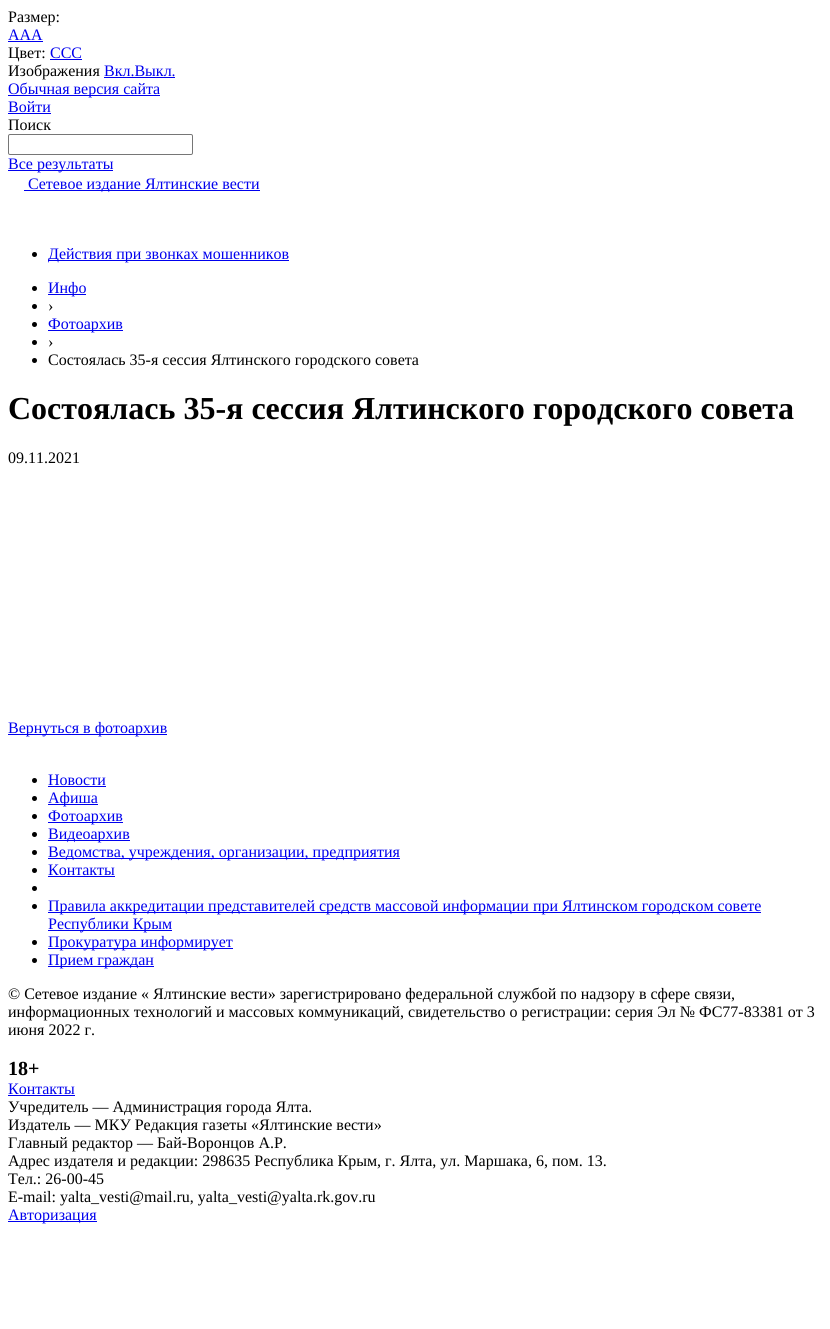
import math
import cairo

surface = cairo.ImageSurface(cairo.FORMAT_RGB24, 830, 1329)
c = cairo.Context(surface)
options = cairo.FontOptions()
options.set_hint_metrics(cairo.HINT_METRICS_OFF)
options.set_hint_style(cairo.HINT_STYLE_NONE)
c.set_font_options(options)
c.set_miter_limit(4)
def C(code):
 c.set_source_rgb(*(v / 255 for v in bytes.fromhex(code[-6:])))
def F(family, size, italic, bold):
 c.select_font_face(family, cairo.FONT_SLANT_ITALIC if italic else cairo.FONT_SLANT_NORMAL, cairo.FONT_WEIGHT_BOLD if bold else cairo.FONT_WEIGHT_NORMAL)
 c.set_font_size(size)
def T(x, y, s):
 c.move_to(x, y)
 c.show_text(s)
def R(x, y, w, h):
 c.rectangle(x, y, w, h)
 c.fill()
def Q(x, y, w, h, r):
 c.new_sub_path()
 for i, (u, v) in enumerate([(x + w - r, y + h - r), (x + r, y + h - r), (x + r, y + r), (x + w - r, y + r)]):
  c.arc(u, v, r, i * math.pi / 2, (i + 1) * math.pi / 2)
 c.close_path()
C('ffffff')
c.paint()
F('Liberation Serif',16,0,0)
C('000000')
T(8,22,'Размер:')
C('0000ee')
T(8,40,'AAA')
R(8,41,35,1)
C('000000')
T(8,58,'Цвет:')
C('0000ee')
T(50,58,'CCC')
R(50,59,32,1)
C('000000')
T(8,76,'Изображения')
C('0000ee')
T(104,76,'Вкл.Выкл.')
R(104,77,71,1)
R(8,95,152,1)
T(8,94,'Обычная версия сайта')
T(8,112,'Войти')
R(8,113,43,1)
C('000000')
T(8,130,'Поиск')
Q(8.5,134.5,184,20,1.5)
C('767676')
c.set_line_width(1)
c.stroke()
C('0000ee')
R(8,170,105,1)
T(8,169,'Все результаты')
R(24,190,236,1)
T(28,189,'Сетевое издание Ялтинские вести')
C('000000')
c.new_path()
c.arc(34.5,254.5,2.5,0,2 * math.pi)
c.fill()
C('0000ee')
R(48,260,241,1)
T(48,259,'Действия при звонках мошенников')
C('000000')
c.new_path()
c.arc(34.5,288.5,2.5,0,2 * math.pi)
c.fill()
C('0000ee')
R(48,294,38,1)
T(48,293,'Инфо')
C('000000')
c.new_path()
c.arc(34.5,306.5,2.5,0,2 * math.pi)
c.fill()
T(48,311,'›')
c.new_path()
c.arc(34.5,324.5,2.5,0,2 * math.pi)
c.fill()
C('0000ee')
R(48,330,75,1)
T(48,329,'Фотоархив')
C('000000')
c.new_path()
c.arc(34.5,342.5,2.5,0,2 * math.pi)
c.fill()
T(48,347,'›')
c.new_path()
c.arc(34.5,360.5,2.5,0,2 * math.pi)
c.fill()
T(48,365,'Состоялась 35-я сессия Ялтинского городского совета')
F('Liberation Serif',32,0,1)
T(8,419,'Состоялась 35-я сессия Ялтинского городского совета')
F('Liberation Serif',16,0,0)
T(8,463,'09.11.2021')
C('0000ee')
R(8,734,159,1)
T(8,733,'Вернуться в фотоархив')
C('000000')
c.new_path()
c.arc(34.5,780.5,2.5,0,2 * math.pi)
c.fill()
C('0000ee')
T(48,785,'Новости')
R(48,786,58,1)
C('000000')
c.new_path()
c.arc(34.5,798.5,2.5,0,2 * math.pi)
c.fill()
C('0000ee')
R(48,804,50,1)
T(48,803,'Афиша')
C('000000')
c.new_path()
c.arc(34.5,816.5,2.5,0,2 * math.pi)
c.fill()
C('0000ee')
R(48,822,75,1)
T(48,821,'Фотоархив')
C('000000')
c.new_path()
c.arc(34.5,834.5,2.5,0,2 * math.pi)
c.fill()
C('0000ee')
R(48,840,82,1)
T(48,839,'Видеоархив')
C('000000')
c.new_path()
c.arc(34.5,852.5,2.5,0,2 * math.pi)
c.fill()
C('0000ee')
R(48,858,352,1)
T(48,857,'Ведомства, учреждения, организации, предприятия')
C('000000')
c.new_path()
c.arc(34.5,870.5,2.5,0,2 * math.pi)
c.fill()
C('0000ee')
T(48,875,'Контакты')
R(48,876,67,1)
C('000000')
c.new_path()
c.arc(34.5,888.5,2.5,0,2 * math.pi)
c.fill()
c.arc(34.5,906.5,2.5,0,2 * math.pi)
c.fill()
C('0000ee')
R(48,912,713,1)
T(48,911,'Правила аккредитации представителей средств массовой информации при Ялтинском городском совете')
R(48,930,124,1)
T(48,929,'Республики Крым')
C('000000')
c.new_path()
c.arc(34.5,942.5,2.5,0,2 * math.pi)
c.fill()
C('0000ee')
R(48,948,185,1)
T(48,947,'Прокуратура информирует')
C('000000')
c.new_path()
c.arc(34.5,960.5,2.5,0,2 * math.pi)
c.fill()
C('0000ee')
R(48,966,106,1)
T(48,965,'Прием граждан')
C('000000')
T(8,999,'© Сетевое издание « Ялтинские вести» зарегистрировано федеральной службой по надзору в сфере связи,')
T(8,1017,'информационных технологий и массовых коммуникаций, свидетельство о регистрации: серия Эл № ФС77-83381 от 3')
T(8,1035,'июня 2022 г.')
F('Liberation Serif',20,0,1)
T(8,1075,'18+')
F('Liberation Serif',16,0,0)
C('0000ee')
T(8,1094,'Контакты')
R(8,1095,67,1)
C('000000')
T(8,1112,'Учредитель — Администрация города Ялта.')
T(8,1130,'Издатель — МКУ Редакция газеты «Ялтинские вести»')
T(8,1148,'Главный редактор — Бай-Воронцов А.Р.')
T(8,1166,'Адрес издателя и редакции: 298635 Республика Крым, г. Ялта, ул. Маршака, 6, пом. 13.')
T(8,1184,'Тел.: 26-00-45')
T(8,1202,'E-mail: yalta_vesti@mail.ru, yalta_vesti@yalta.rk.gov.ru')
C('0000ee')
R(8,1221,89,1)
T(8,1220,'Авторизация')
surface.write_to_png('o.png')
